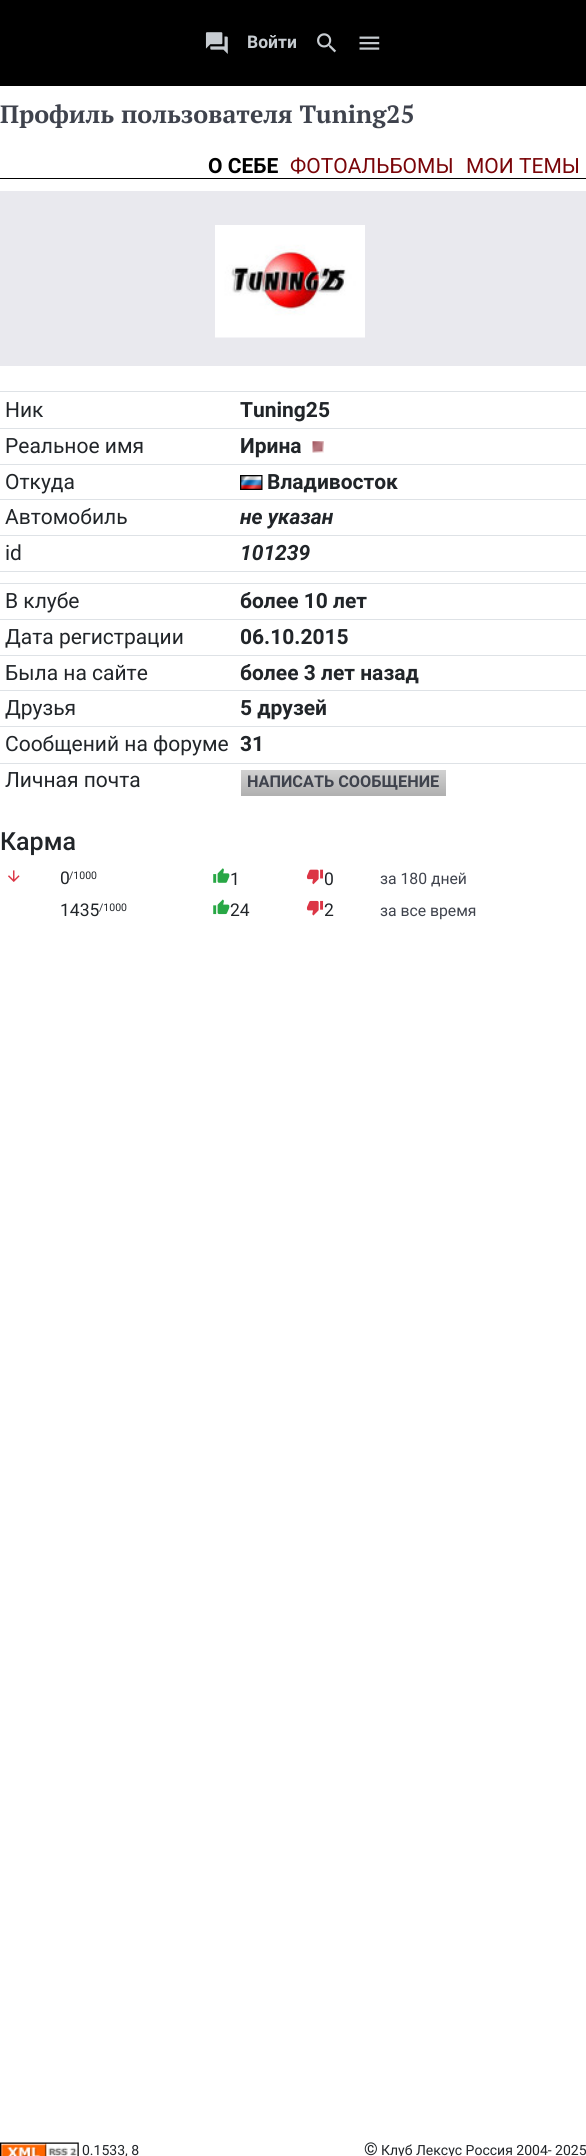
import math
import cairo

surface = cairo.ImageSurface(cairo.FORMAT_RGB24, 586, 2156)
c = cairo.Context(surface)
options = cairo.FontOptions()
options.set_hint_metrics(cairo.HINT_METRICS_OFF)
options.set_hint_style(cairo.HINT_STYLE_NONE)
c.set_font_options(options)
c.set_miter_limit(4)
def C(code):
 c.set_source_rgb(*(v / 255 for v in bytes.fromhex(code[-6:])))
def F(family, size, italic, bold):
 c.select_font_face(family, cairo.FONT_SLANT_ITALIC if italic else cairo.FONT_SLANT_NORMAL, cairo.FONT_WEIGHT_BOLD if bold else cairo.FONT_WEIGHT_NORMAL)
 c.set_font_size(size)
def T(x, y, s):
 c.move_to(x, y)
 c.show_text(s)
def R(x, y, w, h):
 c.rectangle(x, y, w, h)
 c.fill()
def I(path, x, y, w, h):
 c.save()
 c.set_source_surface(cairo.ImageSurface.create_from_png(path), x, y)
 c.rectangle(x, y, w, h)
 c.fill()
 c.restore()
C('ffffff')
c.paint()
C('000000')
R(0,0,586,86)
I('1.png',205,32,23,22)
F('Roboto',17.5,0,1)
C('c7ccd1')
T(247,48,'Войти')
I('2.png',317,33,20,20)
I('3.png',359,36,21,14)
F('PT Serif',25,0,1)
C('3f434d')
T(0,123,'Профиль пользователя Tuning25')
C('000000')
R(0,178,586,1)
F('Roboto',21,0,1)
T(208,173,'О СЕБЕ')
F('Roboto',21,0,0)
C('7a0509')
T(290,173,'ФОТОАЛЬБОМЫ')
T(466,173,'МОИ ТЕМЫ')
C('e9e9ee')
R(0,191,586,175)
I('4.png',215,225,150,113)
C('212529')
T(5,417,'Ник')
C('dee2e6')
R(0,391,586,1)
F('Roboto',21,0,1)
C('212529')
T(240,417,'Tuning25')
F('Roboto',21,0,0)
T(5,453,'Реальное имя')
C('dee2e6')
R(0,428,586,1)
F('Roboto',21,0,1)
C('212529')
T(240,453,'Ирина')
I('5.png',312,441,12,12)
F('Roboto',21,0,0)
T(5,489,'Откуда')
C('dee2e6')
R(0,464,586,1)
I('6.png',240,475,23,15)
F('Roboto',21,0,1)
C('212529')
T(267,489,'Владивосток')
F('Roboto',21,0,0)
T(5,524,'Автомобиль')
C('dee2e6')
R(0,499,586,1)
F('Roboto',21,1,1)
C('212529')
T(240,524,'не указан')
F('Roboto',21,0,0)
T(5,560,'id')
C('dee2e6')
R(0,535,586,1)
F('Roboto',21,1,1)
C('212529')
T(240,560,'101239')
C('dee2e6')
R(0,571,586,1)
F('Roboto',21,0,0)
C('212529')
T(5,608,'В клубе')
C('dee2e6')
R(0,583,586,1)
F('Roboto',21,0,1)
C('212529')
T(240,608,'более 10 лет')
F('Roboto',21,0,0)
T(5,644,'Дата регистрации')
C('dee2e6')
R(0,619,586,1)
F('Roboto',21,0,1)
C('212529')
T(240,644,'06.10.2015')
F('Roboto',21,0,0)
T(5,680,'Была на сайте')
C('dee2e6')
R(0,655,586,1)
F('Roboto',21,0,1)
C('212529')
T(240,680,'более 3 лет назад')
F('Roboto',21,0,0)
T(5,715,'Друзья')
C('dee2e6')
R(0,690,586,1)
F('Roboto',21,0,1)
C('212529')
T(240,715,'5 друзей')
F('Roboto',21,0,0)
T(5,751,'Сообщений на форуме')
C('dee2e6')
R(0,726,586,1)
F('Roboto',21,0,1)
C('212529')
T(240,751,'31')
F('Roboto',21,0,0)
T(5,787,'Личная почта')
C('dee2e6')
R(0,763,586,1)
gradient = cairo.LinearGradient(344,770,344,796)
gradient.add_color_stop_rgba(0,0.82,0.82,0.82,1)
gradient.add_color_stop_rgba(1,0.686,0.686,0.686,1)
c.set_source(gradient)
R(241,770,205,26)
F('Roboto',16.25,0,1)
C('3f434d')
T(247,787,'НАПИСАТЬ СООБЩЕНИЕ')
F('Roboto Medium',25,0,0)
C('212529')
T(0,850,'Карма')
I('7.png',8,870,12,12)
F('Roboto',17.5,0,0)
T(60,884,'0')
F('Roboto',10.5,0,0)
T(69,879,'/1000')
I('8.png',213,868,17,15)
F('Roboto',17.5,0,0)
T(230,885,'1')
I('9.png',306,869,18,16)
T(324,885,'0')
F('Roboto',15.75,0,0)
C('3f434d')
T(380,884,'за 180 дней')
F('Roboto',17.5,0,0)
C('212529')
T(60,916,'1435')
F('Roboto',10.5,0,0)
T(99,911,'/1000')
I('10.png',213,899,17,16)
F('Roboto',17.5,0,0)
T(230,916,'24')
I('11.png',306,900,18,16)
T(324,916,'2')
F('Roboto',15.75,0,0)
C('3f434d')
T(380,916,'за все время')
I('12.png',0,2142,79,14)
F('Roboto',14,0,0)
C('212529')
T(82,2155,'0.1533, 8')
F('Roboto',17.5,0,0)
T(364,2155,'©')
F('Roboto',14,0,0)
T(381,2155,'Клуб Лексус Россия 2004- 2025')
surface.write_to_png('o.png')
